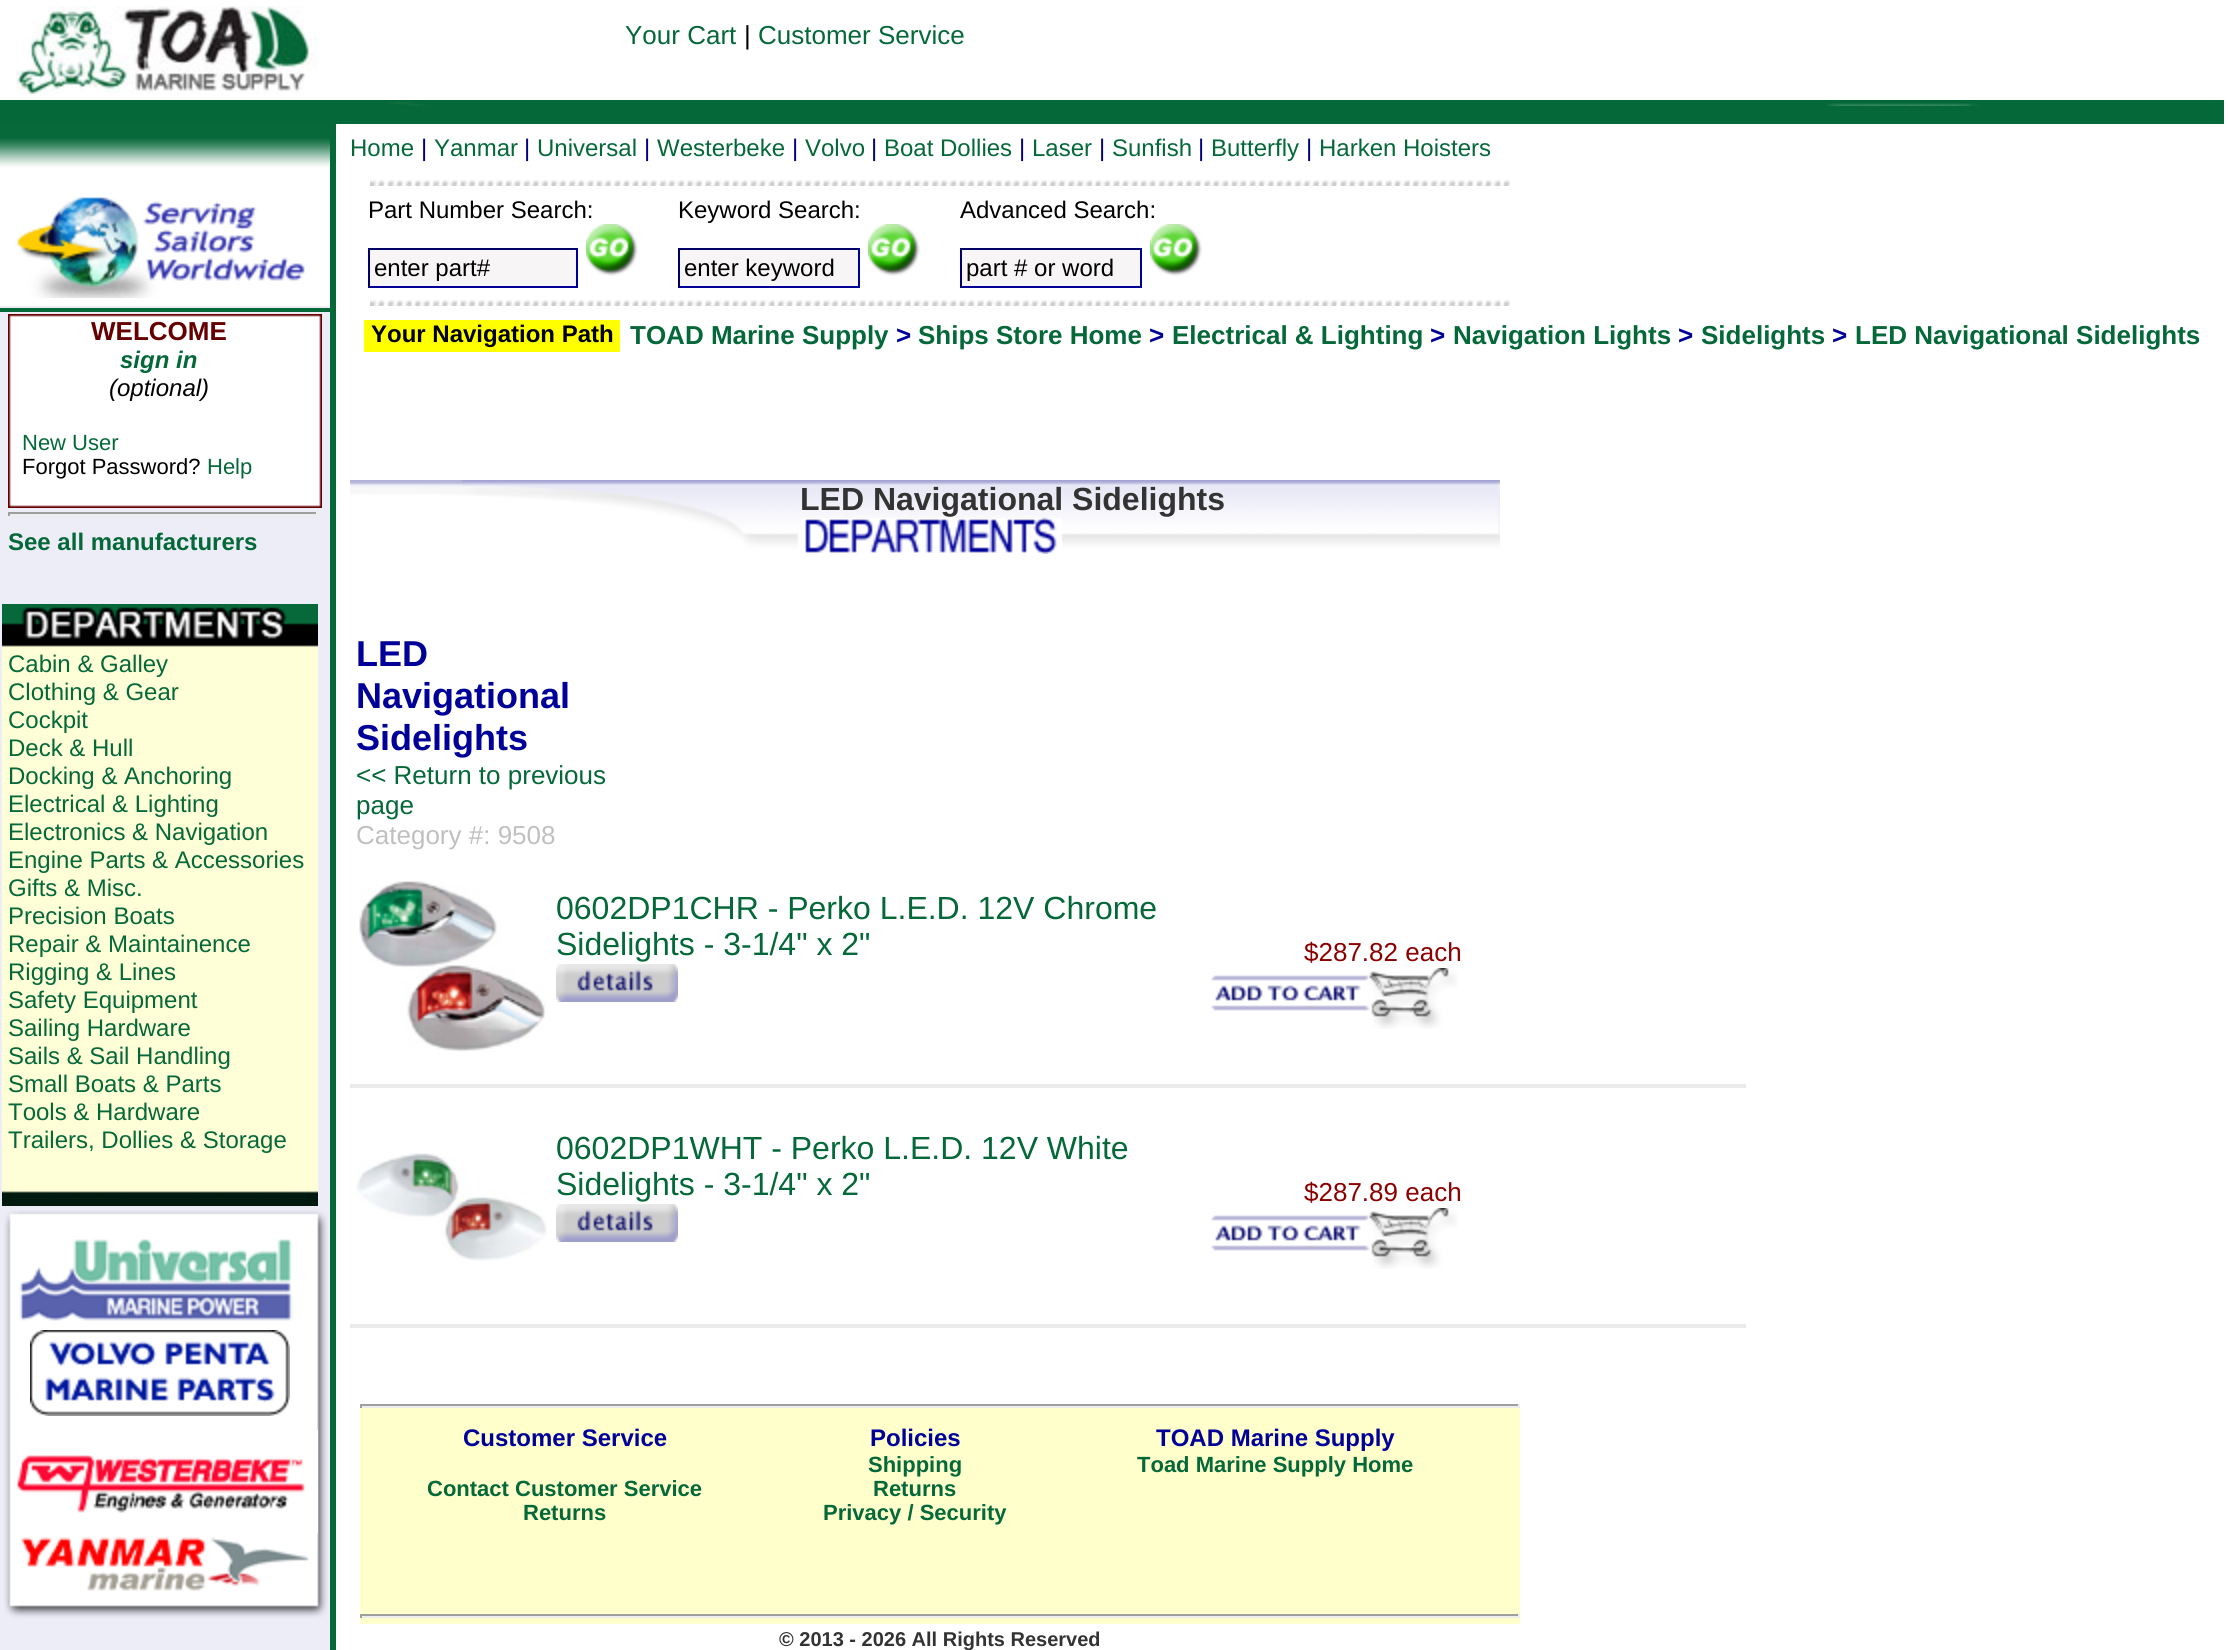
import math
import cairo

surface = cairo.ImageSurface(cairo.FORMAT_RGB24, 2228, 1650)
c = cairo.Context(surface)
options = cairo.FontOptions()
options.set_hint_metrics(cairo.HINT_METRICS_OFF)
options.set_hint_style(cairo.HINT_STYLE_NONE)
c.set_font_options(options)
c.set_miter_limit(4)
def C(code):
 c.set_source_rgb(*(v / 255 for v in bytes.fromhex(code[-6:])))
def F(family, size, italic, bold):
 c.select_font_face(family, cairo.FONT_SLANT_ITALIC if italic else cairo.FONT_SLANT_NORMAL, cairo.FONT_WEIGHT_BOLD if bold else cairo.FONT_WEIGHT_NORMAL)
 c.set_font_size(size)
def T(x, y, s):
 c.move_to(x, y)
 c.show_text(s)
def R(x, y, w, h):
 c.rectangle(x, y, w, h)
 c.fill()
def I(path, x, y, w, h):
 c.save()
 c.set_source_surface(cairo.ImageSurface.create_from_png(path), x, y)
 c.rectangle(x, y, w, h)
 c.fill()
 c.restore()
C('ffffff')
c.paint()
I('1.png',16,6,303,88)
F('Liberation Sans',26,0,0)
C('056839')
T(625,44,'Your Cart')
C('000000')
T(744,44,'|')
C('056839')
T(758,44,'Customer Service')
I('2.png',0,100,2224,6)
R(0,106,2224,18)
I('3.png',0,124,330,43)
R(330,124,6,1526)
F('Liberation Sans',24,0,0)
T(350,156,'Home')
C('000080')
T(421,156,'|')
C('056839')
T(434,156,'Yanmar')
C('000080')
T(524,156,'|')
C('056839')
T(537,156,'Universal')
C('000080')
T(644,156,'|')
C('056839')
T(657,156,'Westerbeke')
C('000080')
T(792,156,'|')
C('056839')
T(805,156,'Volvo')
C('000080')
T(871,156,'|')
C('056839')
T(884,156,'Boat Dollies')
C('000080')
T(1019,156,'|')
C('056839')
T(1032,156,'Laser')
C('000080')
T(1099,156,'|')
C('056839')
T(1112,156,'Sunfish')
C('000080')
T(1198,156,'|')
C('056839')
T(1211,156,'Butterfly')
C('000080')
T(1306,156,'|')
C('056839')
T(1319,156,'Harken Hoisters')
I('4.png',370,180,1140,6)
I('4.png',370,300,1140,6)
C('ecedf7')
R(0,306,330,1344)
C('056839')
R(0,308,334,4)
I('5.png',8,314,314,194)
F('Liberation Sans',26,0,1)
C('660000')
T(91,340,'WELCOME')
F('Liberation Sans',24,1,1)
C('056839')
T(120,368,'sign in')
F('Liberation Sans',24,1,0)
C('000000')
T(109,396,'(optional)')
F('Liberation Sans',22,0,0)
C('056839')
T(22,450,'New User')
C('000000')
T(22,474,'Forgot Password?')
C('056839')
T(207,474,'Help')
C('ffff00')
R(364,320,256,32)
F('Liberation Sans',24,0,1)
C('000000')
T(371,342,'Your Navigation Path')
F('Liberation Sans',26,0,1)
C('056839')
T(630,344,'TOAD Marine Supply')
C('000099')
T(896,344,'>')
C('056839')
T(918,344,'Ships Store Home')
C('000099')
T(1149,344,'>')
C('056839')
T(1172,344,'Electrical & Lighting')
C('000099')
T(1430,344,'>')
C('056839')
T(1453,344,'Navigation Lights')
C('000099')
T(1678,344,'>')
C('056839')
T(1701,344,'Sidelights')
C('000099')
T(1832,344,'>')
C('056839')
T(1855,344,'LED Navigational Sidelights')
C('9f9f9f')
R(8,512,310,2)
C('eeeeee')
R(316,512,2,4)
R(8,514,310,2)
C('9f9f9f')
R(8,512,2,4)
F('Liberation Sans',24,0,1)
C('056839')
T(8,550,'See all manufacturers')
I('6.png',2,604,316,602)
F('Liberation Sans',24,0,0)
T(8,672,'Cabin & Galley')
T(8,700,'Clothing & Gear')
T(8,728,'Cockpit')
T(8,756,'Deck & Hull')
T(8,784,'Docking & Anchoring')
T(8,812,'Electrical & Lighting')
T(8,840,'Electronics & Navigation')
T(8,868,'Engine Parts & Accessories')
T(8,896,'Gifts & Misc.')
T(8,924,'Precision Boats')
T(8,952,'Repair & Maintainence')
T(8,980,'Rigging & Lines')
T(8,1008,'Safety Equipment')
T(8,1036,'Sailing Hardware')
T(8,1064,'Sails & Sail Handling')
T(8,1092,'Small Boats & Parts')
T(8,1120,'Tools & Hardware')
T(8,1148,'Trailers, Dollies & Storage')
I('7.png',4,1210,324,408)
I('8.png',19,1239,274,82)
I('9.png',30,1330,260,86)
I('10.png',17,1430,301,104)
I('11.png',21,1537,288,54)
I('12.png',17,197,288,101)
C('000000')
T(368,218,'Part Number Search:')
C('f7f5f5')
R(370,250,206,36)
C('000066')
R(368,248,210,2)
C('000099')
R(576,248,2,40)
R(368,286,210,2)
C('000066')
R(368,248,2,40)
C('000000')
T(374,276,'enter part#')
I('13.png',586,224,52,52)
T(678,218,'Keyword Search:')
C('f7f5f5')
R(680,250,178,36)
C('000066')
R(678,248,182,2)
C('000099')
R(858,248,2,40)
R(678,286,182,2)
C('000066')
R(678,248,2,40)
C('000000')
T(684,276,'enter keyword')
I('13.png',868,224,52,52)
T(960,218,'Advanced Search:')
C('f7f5f5')
R(962,250,178,36)
C('000066')
R(960,248,182,2)
C('000099')
R(1140,248,2,40)
R(960,286,182,2)
C('000066')
R(960,248,2,40)
C('000000')
T(966,276,'part # or word')
I('13.png',1150,224,52,52)
I('14.png',350,480,1150,74)
F('Liberation Sans',32,0,1)
C('333333')
T(800,510,'LED Navigational Sidelights')
F('Liberation Sans',36,0,1)
C('000099')
T(356,666,'LED')
T(356,708,'Navigational')
T(356,750,'Sidelights')
F('Liberation Sans',26,0,0)
C('056839')
T(356,784,'<< Return to previous')
T(356,814,'page')
C('c0c0c0')
T(356,844,'Category #: 9508')
I('15.png',359,881,187,171)
F('Liberation Sans',32,0,0)
C('056839')
T(556,919,'0602DP1CHR - Perko L.E.D. 12V Chrome')
T(556,955,'Sidelights - 3-1/4" x 2"')
I('16.png',556,964,122,38)
F('Liberation Sans',26,0,0)
C('8b0000')
T(1304,961,'$287.82 each')
I('17.png',1211,968,247,61)
C('ebebeb')
R(350,1084,1396,4)
I('18.png',356,1153,191,108)
F('Liberation Sans',32,0,0)
C('056839')
T(556,1159,'0602DP1WHT - Perko L.E.D. 12V White')
T(556,1195,'Sidelights - 3-1/4" x 2"')
I('16.png',556,1204,122,38)
F('Liberation Sans',26,0,0)
C('8b0000')
T(1304,1201,'$287.89 each')
I('17.png',1211,1208,247,61)
C('ebebeb')
R(350,1324,1396,4)
C('ffffcc')
R(360,1408,1160,216)
C('9f9f9f')
R(360,1404,1160,2)
C('eeeeee')
R(1518,1404,2,4)
R(360,1406,1160,2)
C('9f9f9f')
R(360,1404,2,4)
F('Liberation Sans',24,0,1)
C('000099')
T(463,1446,'Customer Service')
F('Liberation Sans',22,0,1)
C('056839')
T(427,1496,'Contact Customer Service')
T(523,1520,'Returns')
F('Liberation Sans',24,0,1)
C('000099')
T(870,1446,'Policies')
F('Liberation Sans',22,0,1)
C('056839')
T(868,1472,'Shipping')
T(873,1496,'Returns')
T(823,1520,'Privacy / Security')
F('Liberation Sans',24,0,1)
C('000099')
T(1156,1446,'TOAD Marine Supply')
F('Liberation Sans',22,0,1)
C('056839')
T(1137,1472,'Toad Marine Supply Home')
C('9f9f9f')
R(360,1614,1160,2)
C('eeeeee')
R(1518,1614,2,4)
R(360,1616,1160,2)
C('9f9f9f')
R(360,1614,2,4)
F('Liberation Sans',20,0,1)
C('333333')
T(779,1646,'© 2013 - 2026 All Rights Reserved')
surface.write_to_png('o.png')
